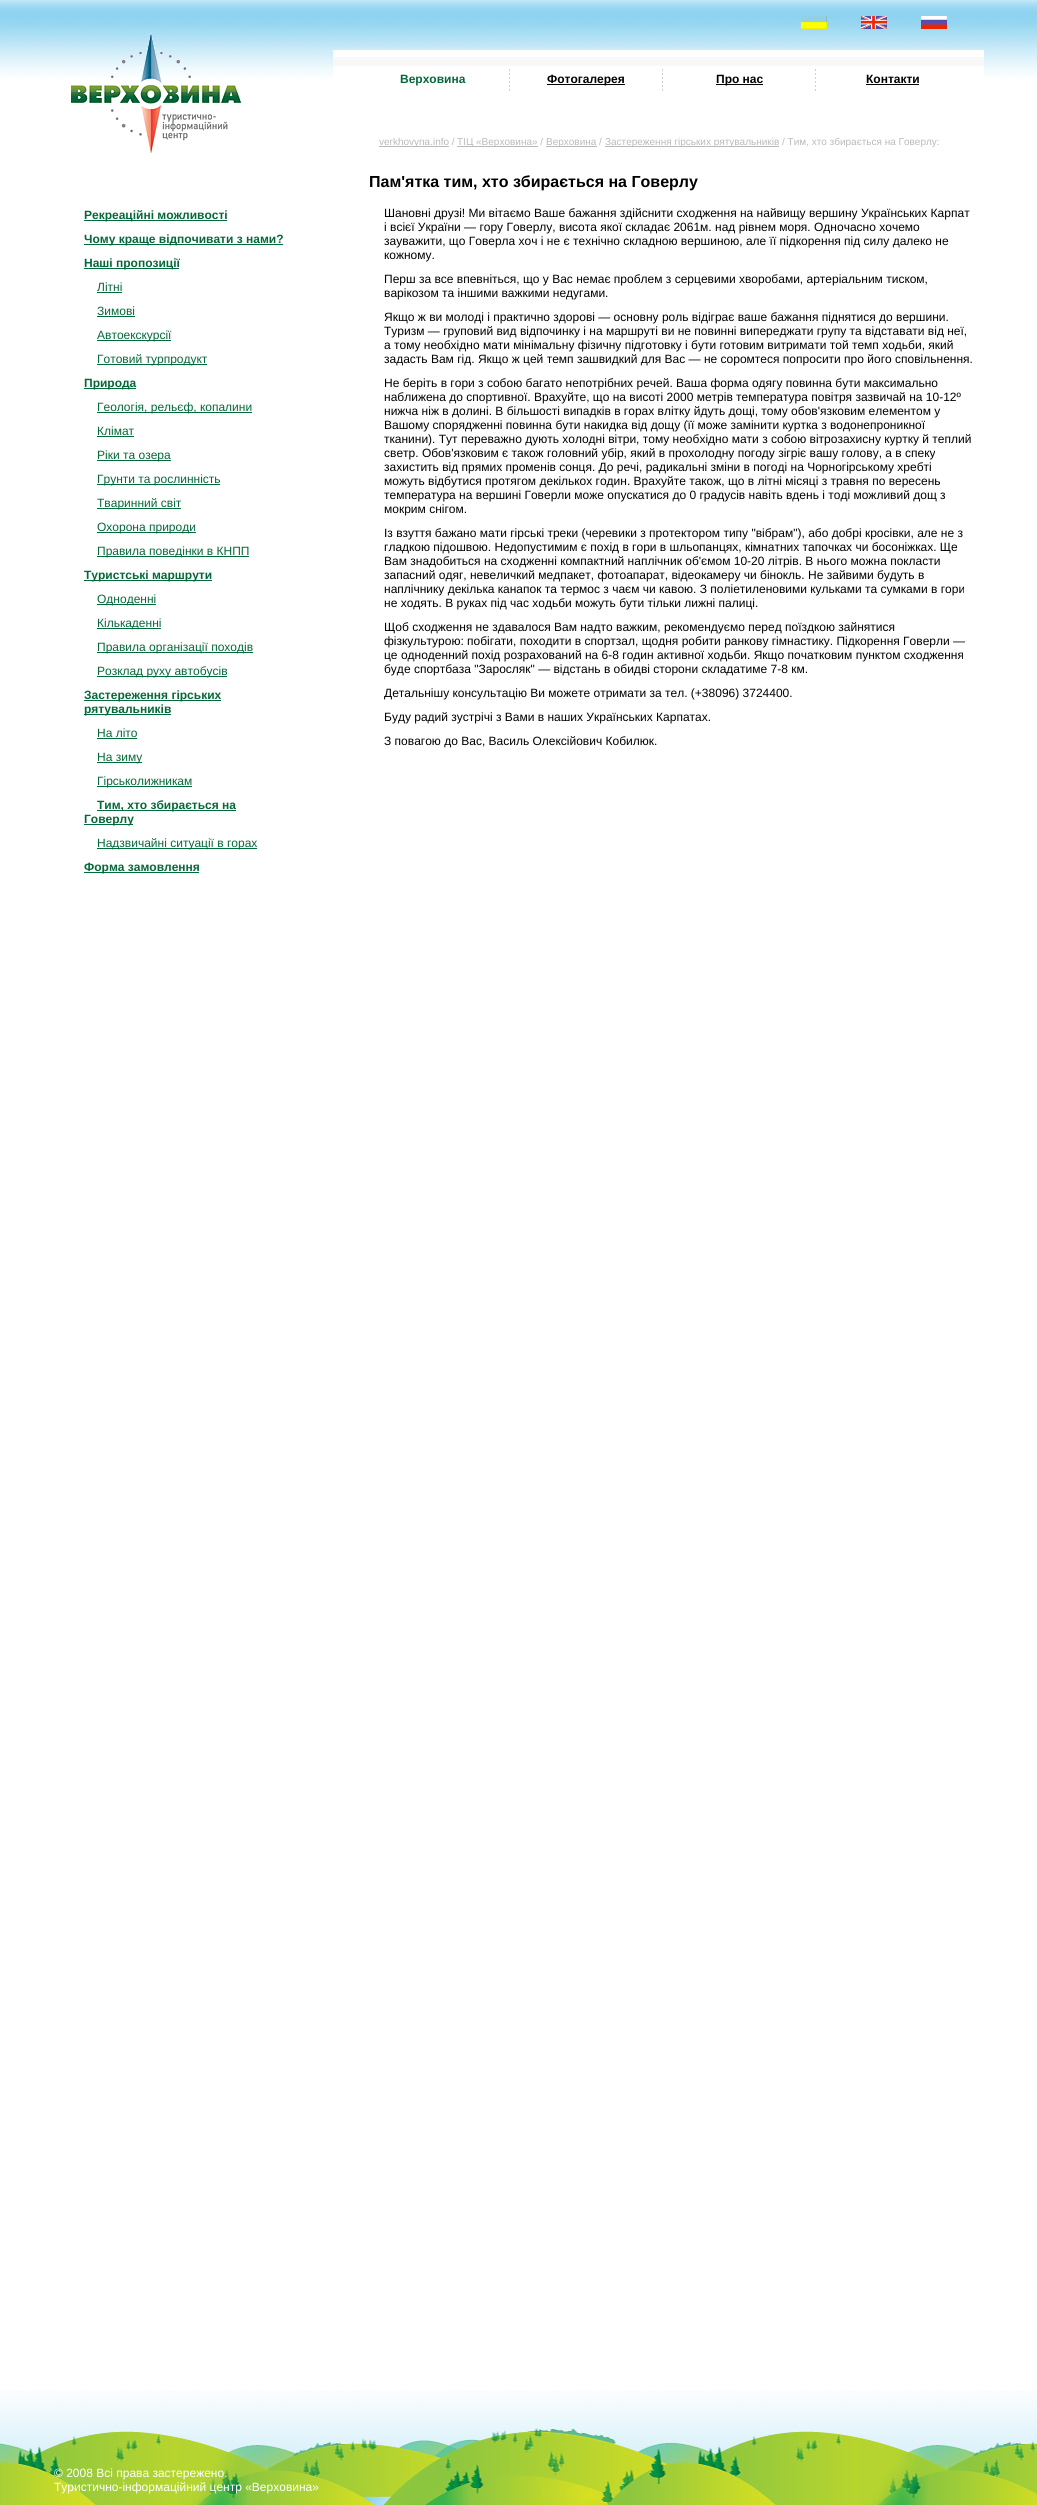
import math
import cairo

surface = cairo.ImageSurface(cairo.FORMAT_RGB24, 1037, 2505)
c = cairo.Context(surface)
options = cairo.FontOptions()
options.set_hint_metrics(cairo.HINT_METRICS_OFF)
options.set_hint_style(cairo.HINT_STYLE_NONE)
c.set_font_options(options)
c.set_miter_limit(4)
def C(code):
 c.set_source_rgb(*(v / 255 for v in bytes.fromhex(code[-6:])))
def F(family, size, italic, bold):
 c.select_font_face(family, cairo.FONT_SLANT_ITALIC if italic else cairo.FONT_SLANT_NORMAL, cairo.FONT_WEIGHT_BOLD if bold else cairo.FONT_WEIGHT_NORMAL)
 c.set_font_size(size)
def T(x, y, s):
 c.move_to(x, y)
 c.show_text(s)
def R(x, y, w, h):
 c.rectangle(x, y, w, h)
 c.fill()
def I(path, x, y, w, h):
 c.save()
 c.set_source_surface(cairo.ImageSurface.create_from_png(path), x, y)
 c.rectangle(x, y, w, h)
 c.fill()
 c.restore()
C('ffffff')
c.paint()
I('1.png',0,0,1037,78)
I('2.png',801,16,26,13)
I('3.png',861,16,26,13)
I('4.png',921,16,26,13)
I('5.png',71,33,170,120)
C('ffffff')
R(333,66,651,12)
C('f8f8f8')
R(333,57,651,9)
C('ffffff')
R(333,50,651,7)
F('Liberation Sans',12,0,1)
C('04693a')
T(400,83,'Верховина')
I('6.png',509,69,1,22)
C('000000')
R(547,84,78,1)
T(547,83,'Фотогалерея')
I('6.png',662,69,1,22)
R(716,84,47,1)
T(716,83,'Про нас')
I('6.png',815,69,1,22)
T(866,83,'Контакти')
R(866,84,53,1)
C('bababa')
R(379,146,70,1)
F('Liberation Sans',10,0,0)
T(379,145,'verkhovyna.info /')
R(457,146,81,1)
T(457,145,'ТІЦ «Верховина» /')
R(546,146,51,1)
T(546,145,'Верховина /')
R(605,146,174,1)
T(605,145,'Застереження гірських рятувальників / Тим, хто збирається на Говерлу:')
C('04693a')
R(84,220,143,1)
F('Liberation Sans',12,0,1)
T(84,219,'Рекреаційні можливості')
R(84,244,199,1)
T(84,243,'Чому краще відпочивати з нами?')
R(84,268,95,1)
T(84,267,'Наші пропозиції')
F('Liberation Sans',12,0,0)
T(97,291,'Літні')
R(97,292,25,1)
T(97,315,'Зимові')
R(97,316,38,1)
R(97,340,74,1)
T(97,339,'Автоекскурсії')
R(97,364,110,1)
T(97,363,'Готовий турпродукт')
R(84,388,52,1)
F('Liberation Sans',12,0,1)
T(84,387,'Природа')
R(97,412,155,1)
F('Liberation Sans',12,0,0)
T(97,411,'Геологія, рельєф, копалини')
T(97,435,'Клімат')
R(97,436,37,1)
R(97,460,74,1)
T(97,459,'Ріки та озера')
R(97,484,123,1)
T(97,483,'Грунти та рослинність')
R(97,508,84,1)
T(97,507,'Тваринний світ')
R(97,532,99,1)
T(97,531,'Охорона природи')
R(97,556,152,1)
T(97,555,'Правила поведінки в КНПП')
R(84,580,128,1)
F('Liberation Sans',12,0,1)
T(84,579,'Туристські маршрути')
R(97,604,59,1)
F('Liberation Sans',12,0,0)
T(97,603,'Одноденні')
R(97,628,64,1)
T(97,627,'Кількаденні')
R(97,652,156,1)
T(97,651,'Правила організації походів')
R(97,676,130,1)
T(97,675,'Розклад руху автобусів')
R(84,700,137,1)
F('Liberation Sans',12,0,1)
T(84,699,'Застереження гірських')
R(84,714,87,1)
T(84,713,'рятувальників')
F('Liberation Sans',12,0,0)
T(97,737,'На літо')
R(97,738,40,1)
R(97,762,45,1)
T(97,761,'На зиму')
R(97,786,95,1)
T(97,785,'Гірськолижникам')
R(97,810,139,1)
F('Liberation Sans',12,0,1)
T(97,809,'Тим, хто збирається на')
R(84,824,49,1)
T(84,823,'Говерлу')
R(97,848,160,1)
F('Liberation Sans',12,0,0)
T(97,847,'Надзвичайні ситуації в горах')
R(84,872,115,1)
F('Liberation Sans',12,0,1)
T(84,871,'Форма замовлення')
F('Liberation Sans',16,0,1)
C('000000')
T(369,187,'Пам\'ятка тим, хто збирається на Говерлу')
F('Liberation Sans',12,0,0)
T(384,217,'Шановні друзі! Ми вітаємо Ваше бажання здійснити сходження на найвищу вершину Українських Карпат')
T(384,231,'і всієї України — гору Говерлу, висота якої складає 2061м. над рівнем моря. Одночасно хочемо')
T(384,245,'зауважити, що Говерла хоч і не є технічно складною вершиною, але її підкорення під силу далеко не')
T(384,259,'кожному.')
T(384,283,'Перш за все впевніться, що у Вас немає проблем з серцевими хворобами, артеріальним тиском,')
T(384,297,'варікозом та іншими важкими недугами.')
T(384,321,'Якщо ж ви молоді і практично здорові — основну роль відіграє ваше бажання піднятися до вершини.')
T(384,335,'Туризм — груповий вид відпочинку і на маршруті ви не повинні випереджати групу та відставати від неї,')
T(384,349,'а тому необхідно мати мінімальну фізичну підготовку і бути готовим витримати той темп ходьби, який')
T(384,363,'задасть Вам гід. Якщо ж цей темп зашвидкий для Вас — не соромтеся попросити про його сповільнення.')
T(384,387,'Не беріть в гори з собою багато непотрібних речей. Ваша форма одягу повинна бути максимально')
T(384,401,'наближена до спортивної. Врахуйте, що на висоті 2000 метрів температура повітря зазвичай на 10-12º')
T(384,415,'нижча ніж в долині. В більшості випадків в горах влітку йдуть дощі, тому обов\'язковим елементом у')
T(384,429,'Вашому спорядженні повинна бути накидка від дощу (її може замінити куртка з водонепроникної')
T(384,443,'тканини). Тут переважно дують холодні вітри, тому необхідно мати з собою вітрозахисну куртку й теплий')
T(384,457,'светр. Обов\'язковим є також головний убір, який в прохолодну погоду зігріє вашу голову, а в спеку')
T(384,471,'захистить від прямих променів сонця. До речі, радикальні зміни в погоді на Чорногірському хребті')
T(384,485,'можуть відбутися протягом декількох годин. Врахуйте також, що в літні місяці з травня по вересень')
T(384,499,'температура на вершині Говерли може опускатися до 0 градусів навіть вдень і тоді можливий дощ з')
T(384,513,'мокрим снігом.')
T(384,537,'Із взуття бажано мати гірські треки (черевики з протектором типу "вібрам"), або добрі кросівки, але не з')
T(384,551,'гладкою підошвою. Недопустимим є похід в гори в шльопанцях, кімнатних тапочках чи босоніжках. Ще')
T(384,565,'Вам знадобиться на сходженні компактний наплічник об\'ємом 10-20 літрів. В нього можна покласти')
T(384,579,'запасний одяг, невеличкий медпакет, фотоапарат, відеокамеру чи бінокль. Не зайвими будуть в')
T(384,593,'наплічнику декілька канапок та термос з чаєм чи кавою. З поліетиленовими кульками та сумками в гори')
T(384,607,'не ходять. В руках під час ходьби можуть бути тільки лижні палиці.')
T(384,631,'Щоб сходження не здавалося Вам надто важким, рекомендуємо перед поїздкою зайнятися')
T(384,645,'фізкультурою: побігати, походити в спортзал, щодня робити ранкову гімнастику. Підкорення Говерли —')
T(384,659,'це одноденний похід розрахований на 6-8 годин активної ходьби. Якщо початковим пунктом сходження')
T(384,673,'буде спортбаза "Заросляк" — відстань в обидві сторони складатиме 7-8 км.')
T(384,697,'Детальнішу консультацію Ви можете отримати за тел. (+38096) 3724400.')
T(384,721,'Буду радий зустрічі з Вами в наших Українських Карпатах.')
T(384,745,'З повагою до Вас, Василь Олексійович Кобилюк.')
I('7.png',0,2390,1037,115)
C('ffffff')
T(54,2477,'© 2008 Всі права застережено.')
T(54,2491,'Туристично-інформаційний центр «Верховинa»')
surface.write_to_png('o.png')
